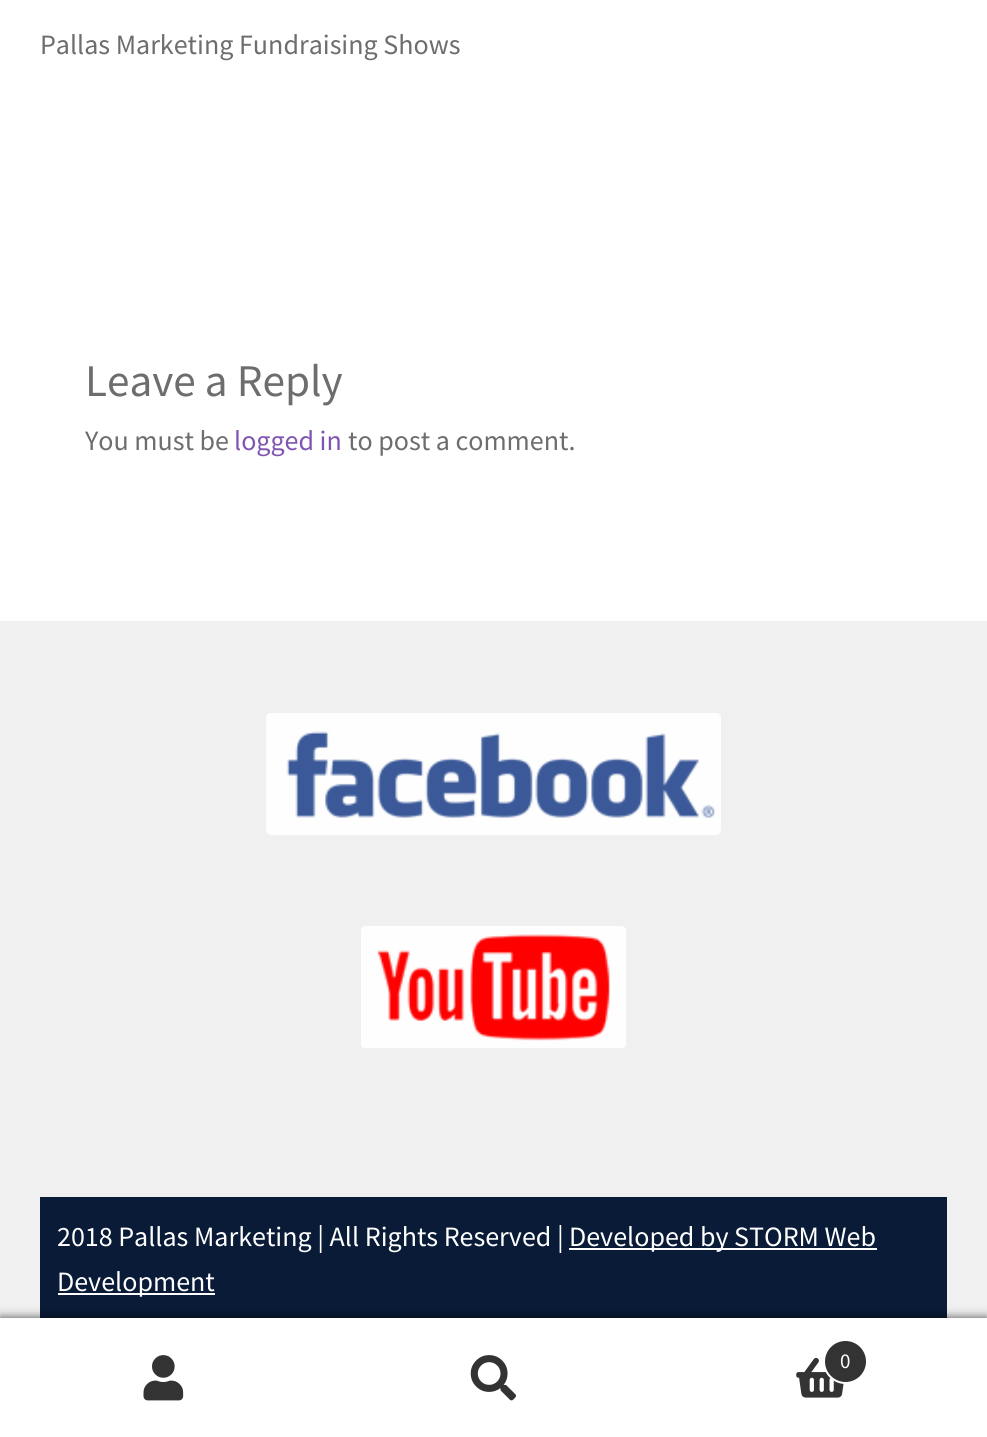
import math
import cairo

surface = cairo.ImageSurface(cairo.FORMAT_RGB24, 987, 1437)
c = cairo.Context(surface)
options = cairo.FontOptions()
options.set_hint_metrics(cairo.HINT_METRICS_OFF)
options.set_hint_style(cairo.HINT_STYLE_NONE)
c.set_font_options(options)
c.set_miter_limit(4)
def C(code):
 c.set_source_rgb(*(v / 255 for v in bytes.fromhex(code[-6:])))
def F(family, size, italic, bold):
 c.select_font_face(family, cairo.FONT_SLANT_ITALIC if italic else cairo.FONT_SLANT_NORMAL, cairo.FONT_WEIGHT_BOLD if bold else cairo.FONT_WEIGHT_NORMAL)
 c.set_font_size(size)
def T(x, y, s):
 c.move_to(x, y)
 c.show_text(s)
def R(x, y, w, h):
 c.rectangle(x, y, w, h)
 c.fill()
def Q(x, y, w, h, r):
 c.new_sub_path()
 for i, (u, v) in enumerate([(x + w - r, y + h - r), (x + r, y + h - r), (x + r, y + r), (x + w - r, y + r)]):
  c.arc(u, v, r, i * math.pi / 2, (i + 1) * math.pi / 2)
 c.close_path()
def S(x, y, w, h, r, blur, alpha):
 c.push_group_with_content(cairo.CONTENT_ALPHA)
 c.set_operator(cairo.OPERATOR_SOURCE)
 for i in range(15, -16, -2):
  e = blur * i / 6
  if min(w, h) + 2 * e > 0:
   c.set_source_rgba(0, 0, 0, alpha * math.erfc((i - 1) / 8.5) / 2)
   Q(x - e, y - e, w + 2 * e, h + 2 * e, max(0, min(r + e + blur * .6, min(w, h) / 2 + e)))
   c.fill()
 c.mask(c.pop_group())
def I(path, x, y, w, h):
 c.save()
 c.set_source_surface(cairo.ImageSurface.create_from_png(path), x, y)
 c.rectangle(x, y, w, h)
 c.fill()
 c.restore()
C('ffffff')
c.paint()
F('Source Sans Pro',28,0,0)
C('6d6d6d')
T(40,54,'Pallas Marketing Fundraising Shows')
F('Source Sans Pro',45.25,0,0)
T(85,396,'Leave a Reply')
F('Source Sans Pro',28,0,0)
T(85,450,'You must be')
C('7f54b3')
T(234,450,'logged in')
C('6d6d6d')
T(348,450,'to post a comment.')
C('f0f0f0')
R(0,621,987,697)
I('1.png',266,713,455,122)
I('2.png',361,926,265,122)
C('091b37')
R(40,1197,907,121)
C('ffffff')
T(57,1246,'2018 Pallas Marketing | All Rights Reserved |')
R(569,1248,308,2)
T(569,1246,'Developed by STORM Web')
R(58,1293,157,2)
T(57,1291,'Development')
C('000000')
S(0,1318,987,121,0,5,.7)
C('ffffff')
R(0,1318,987,119)
I('3.png',143,1355,41,46)
I('4.png',470,1355,46,46)
I('5.png',796,1357,48,41)
C('333333')
c.arc(845.5,1361.5,21.5,0,2 * math.pi)
c.fill_preserve()
C('ffffff')
c.stroke()
F('Source Sans Pro',21,0,0)
T(840,1368,'0')
surface.write_to_png('o.png')
